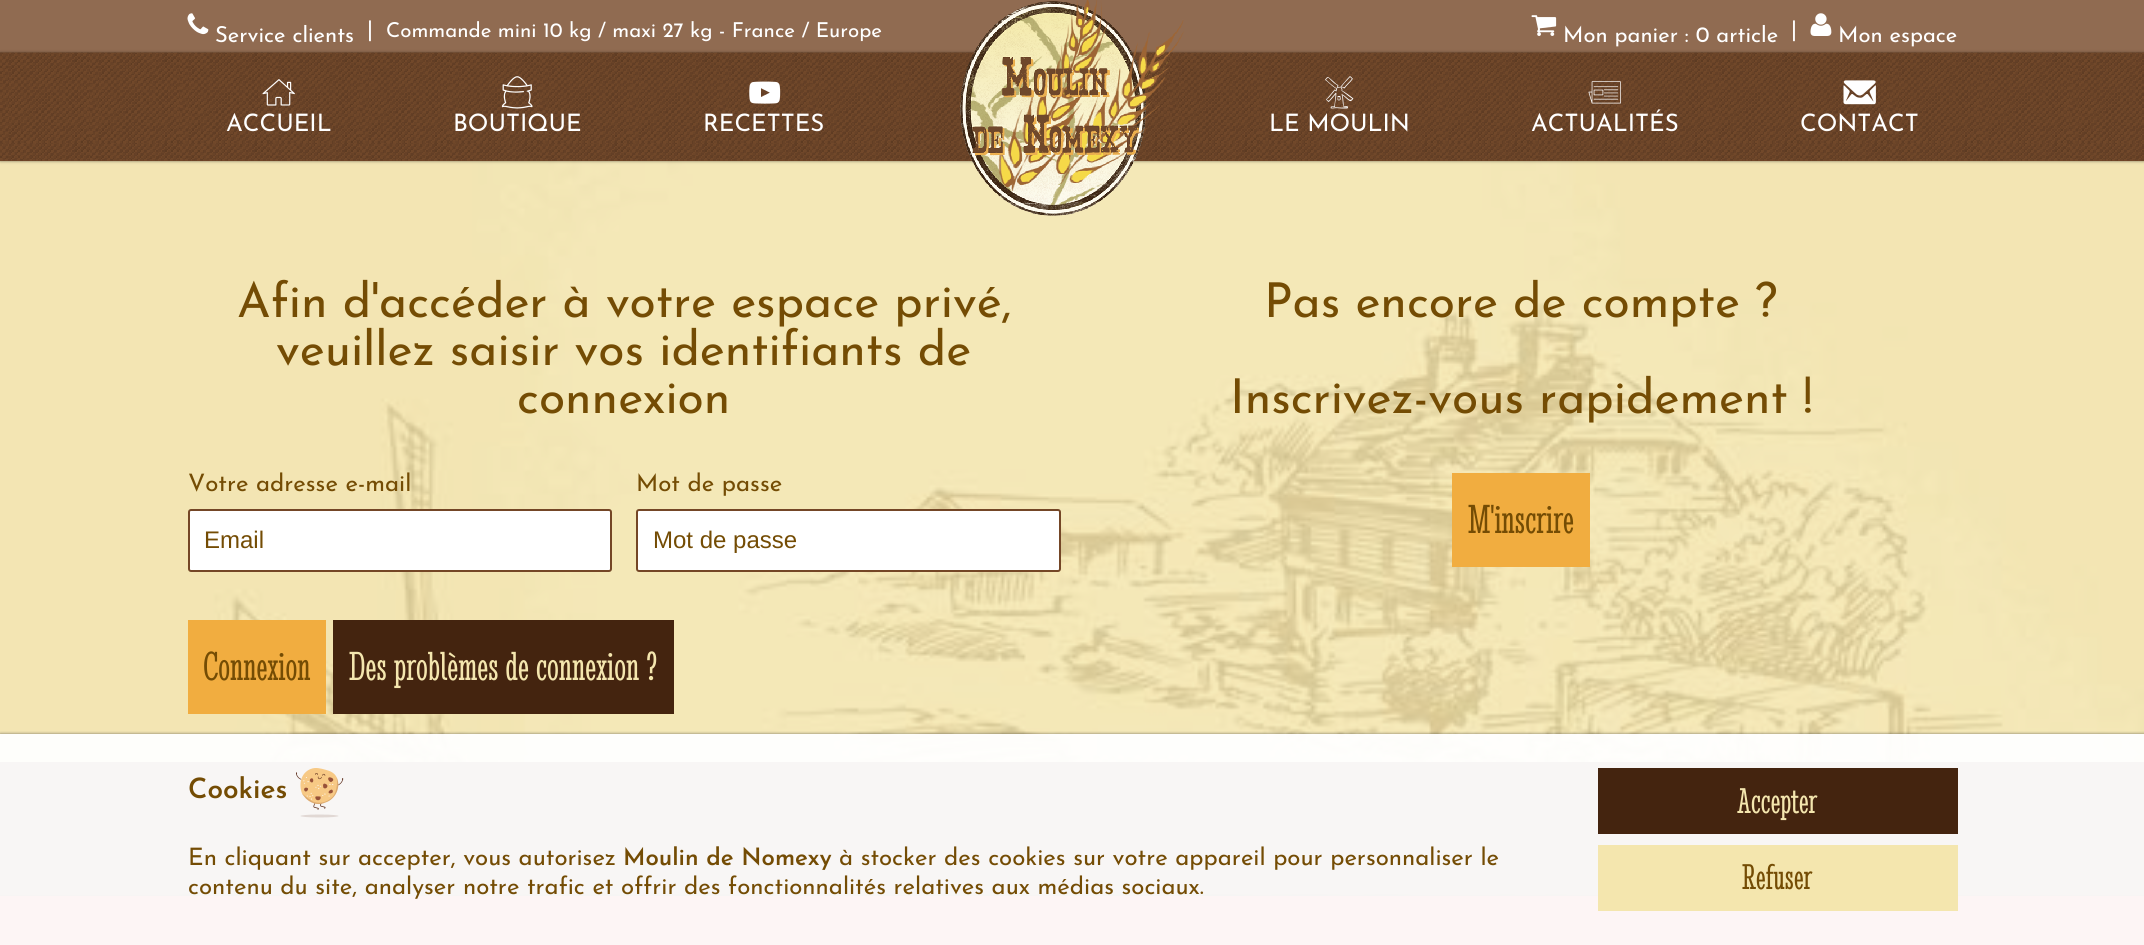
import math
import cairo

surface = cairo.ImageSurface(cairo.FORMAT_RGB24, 2144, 945)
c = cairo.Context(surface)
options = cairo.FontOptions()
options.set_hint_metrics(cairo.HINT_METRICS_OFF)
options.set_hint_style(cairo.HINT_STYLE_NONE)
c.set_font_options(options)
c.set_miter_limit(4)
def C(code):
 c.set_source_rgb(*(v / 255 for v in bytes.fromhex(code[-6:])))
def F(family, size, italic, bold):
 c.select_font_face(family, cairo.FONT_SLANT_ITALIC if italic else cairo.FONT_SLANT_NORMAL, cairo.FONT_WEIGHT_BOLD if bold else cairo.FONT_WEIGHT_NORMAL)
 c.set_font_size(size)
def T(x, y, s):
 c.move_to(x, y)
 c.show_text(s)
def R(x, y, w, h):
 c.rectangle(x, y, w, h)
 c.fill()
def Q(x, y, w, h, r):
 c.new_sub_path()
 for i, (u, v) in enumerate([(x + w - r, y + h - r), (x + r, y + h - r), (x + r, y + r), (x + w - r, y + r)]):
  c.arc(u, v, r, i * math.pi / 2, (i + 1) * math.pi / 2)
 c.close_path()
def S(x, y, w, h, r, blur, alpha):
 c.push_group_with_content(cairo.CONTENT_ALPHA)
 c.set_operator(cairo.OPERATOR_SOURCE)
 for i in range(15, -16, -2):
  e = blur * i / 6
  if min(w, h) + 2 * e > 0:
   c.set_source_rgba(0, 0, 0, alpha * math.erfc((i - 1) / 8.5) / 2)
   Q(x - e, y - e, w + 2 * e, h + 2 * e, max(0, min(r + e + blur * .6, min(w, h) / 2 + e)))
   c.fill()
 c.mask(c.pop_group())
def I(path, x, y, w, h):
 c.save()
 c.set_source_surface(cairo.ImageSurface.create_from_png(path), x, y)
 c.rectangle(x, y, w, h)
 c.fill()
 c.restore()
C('ffffff')
c.paint()
C('906b51')
R(0,0,2144,53)
I('1.png',187,13,22,22)
F('Josefin Sans',22,0,0)
C('ffffff')
T(215,42,'Service clients')
T(367,36,'|')
F('Josefin Sans',20.5,0,0)
T(386,37,'Commande mini 10 kg / maxi 27 kg - France / Europe')
I('2.png',1531,15,26,21)
F('Josefin Sans',22,0,0)
T(1563,42,'Mon panier : 0 article')
T(1791,36,'|')
I('3.png',1810,13,22,23)
T(1838,42,'Mon espace')
I('12.png',0,161,2144,601)
C('000000')
S(0,53,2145,108,0,1.5,.5)
C('744626')
R(0,160,2144,1)
I('4.png',0,52,2144,109)
I('5.png',960,0,224,216)
I('6.png',262,79,33,27)
F('Josefin Sans',24,0,0)
C('ffffff')
T(226,131,'ACCUEIL')
I('7.png',501,76,32,33)
T(453,131,'BOUTIQUE')
I('8.png',749,81,32,23)
T(703,131,'RECETTES')
I('9.png',1325,76,29,33)
T(1269,131,'LE MOULIN')
I('10.png',1588,81,33,23)
T(1531,131,'ACTUALITÉS')
I('11.png',1843,80,33,25)
T(1800,131,'CONTACT')
F('Josefin Sans',48,0,0)
C('744c04')
T(237,317,'Afin d\'accéder à votre espace privé,')
T(276,365,'veuillez saisir vos identifiants de')
T(517,413,'connexion')
F('Josefin Sans',24,0,0)
T(188,491,'Votre adresse e-mail')
C('ffffff')
Q(189,510,422,61,2)
c.fill_preserve()
C('744626')
c.stroke()
F('Liberation Sans',24,0,0)
C('744c04')
T(204,548,'Email')
F('Josefin Sans',24,0,0)
T(636,491,'Mot de passe')
C('ffffff')
Q(637,510,423,61,2)
c.fill_preserve()
C('744626')
c.stroke()
F('Liberation Sans',24,0,0)
C('744c04')
T(653,548,'Mot de passe')
C('f1ad40')
R(188,620,138,94)
F('Stint Ultra Condensed',42,0,0)
C('744c04')
T(203,680,'Connexion')
C('44240f')
R(333,620,341,94)
C('f4e6ae')
T(349,680,'Des problèmes de connexion ?')
F('Josefin Sans',48,0,0)
C('744c04')
T(1264,317,'Pas encore de compte ?')
T(1230,413,'Inscrivez-vous rapidement !')
C('f1ad40')
R(1452,473,138,94)
F('Stint Ultra Condensed',42,0,0)
C('744c04')
T(1468,533,'M\'inscrire')
C('744626')
R(0,762,2144,183)
I('13.png',171,762,1719,183)
c.save()
c.rectangle(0,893,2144,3)
c.clip()
C('000000')
S(0,896,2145,49,0,1.5,.7)
c.restore()
c.set_source_rgba(0.827,0.176,0.176,0.95)
R(0,898,2144,47)
C('d32d2d')
R(0,896,2144,2)
c.save()
c.rectangle(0,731,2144,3)
c.clip()
C('000000')
S(0,734,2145,211,0,1.5,.5)
c.restore()
c.set_source_rgba(1,1,1,0.95)
R(0,734,2144,211)
F('Josefin Sans SemiBold',28,0,0)
C('744c04')
T(188,798,'Cookies')
I('14.png',296,768,48,50)
F('Josefin Sans',24,0,0)
T(188,865,'En cliquant sur accepter, vous autorisez')
F('Josefin Sans SemiBold',24,0,0)
T(623,865,'Moulin de Nomexy')
F('Josefin Sans',24,0,0)
T(839,865,'à stocker des cookies sur votre appareil pour personnaliser le')
T(188,894,'contenu du site, analyser notre trafic et offrir des fonctionnalités relatives aux médias sociaux.')
C('44240f')
R(1598,768,360,66)
F('Stint Ultra Condensed',37,0,0)
C('f4e6ae')
T(1737,813,'Accepter')
R(1598,845,360,66)
C('744c04')
T(1742,889,'Refuser')
surface.write_to_png('o.png')
